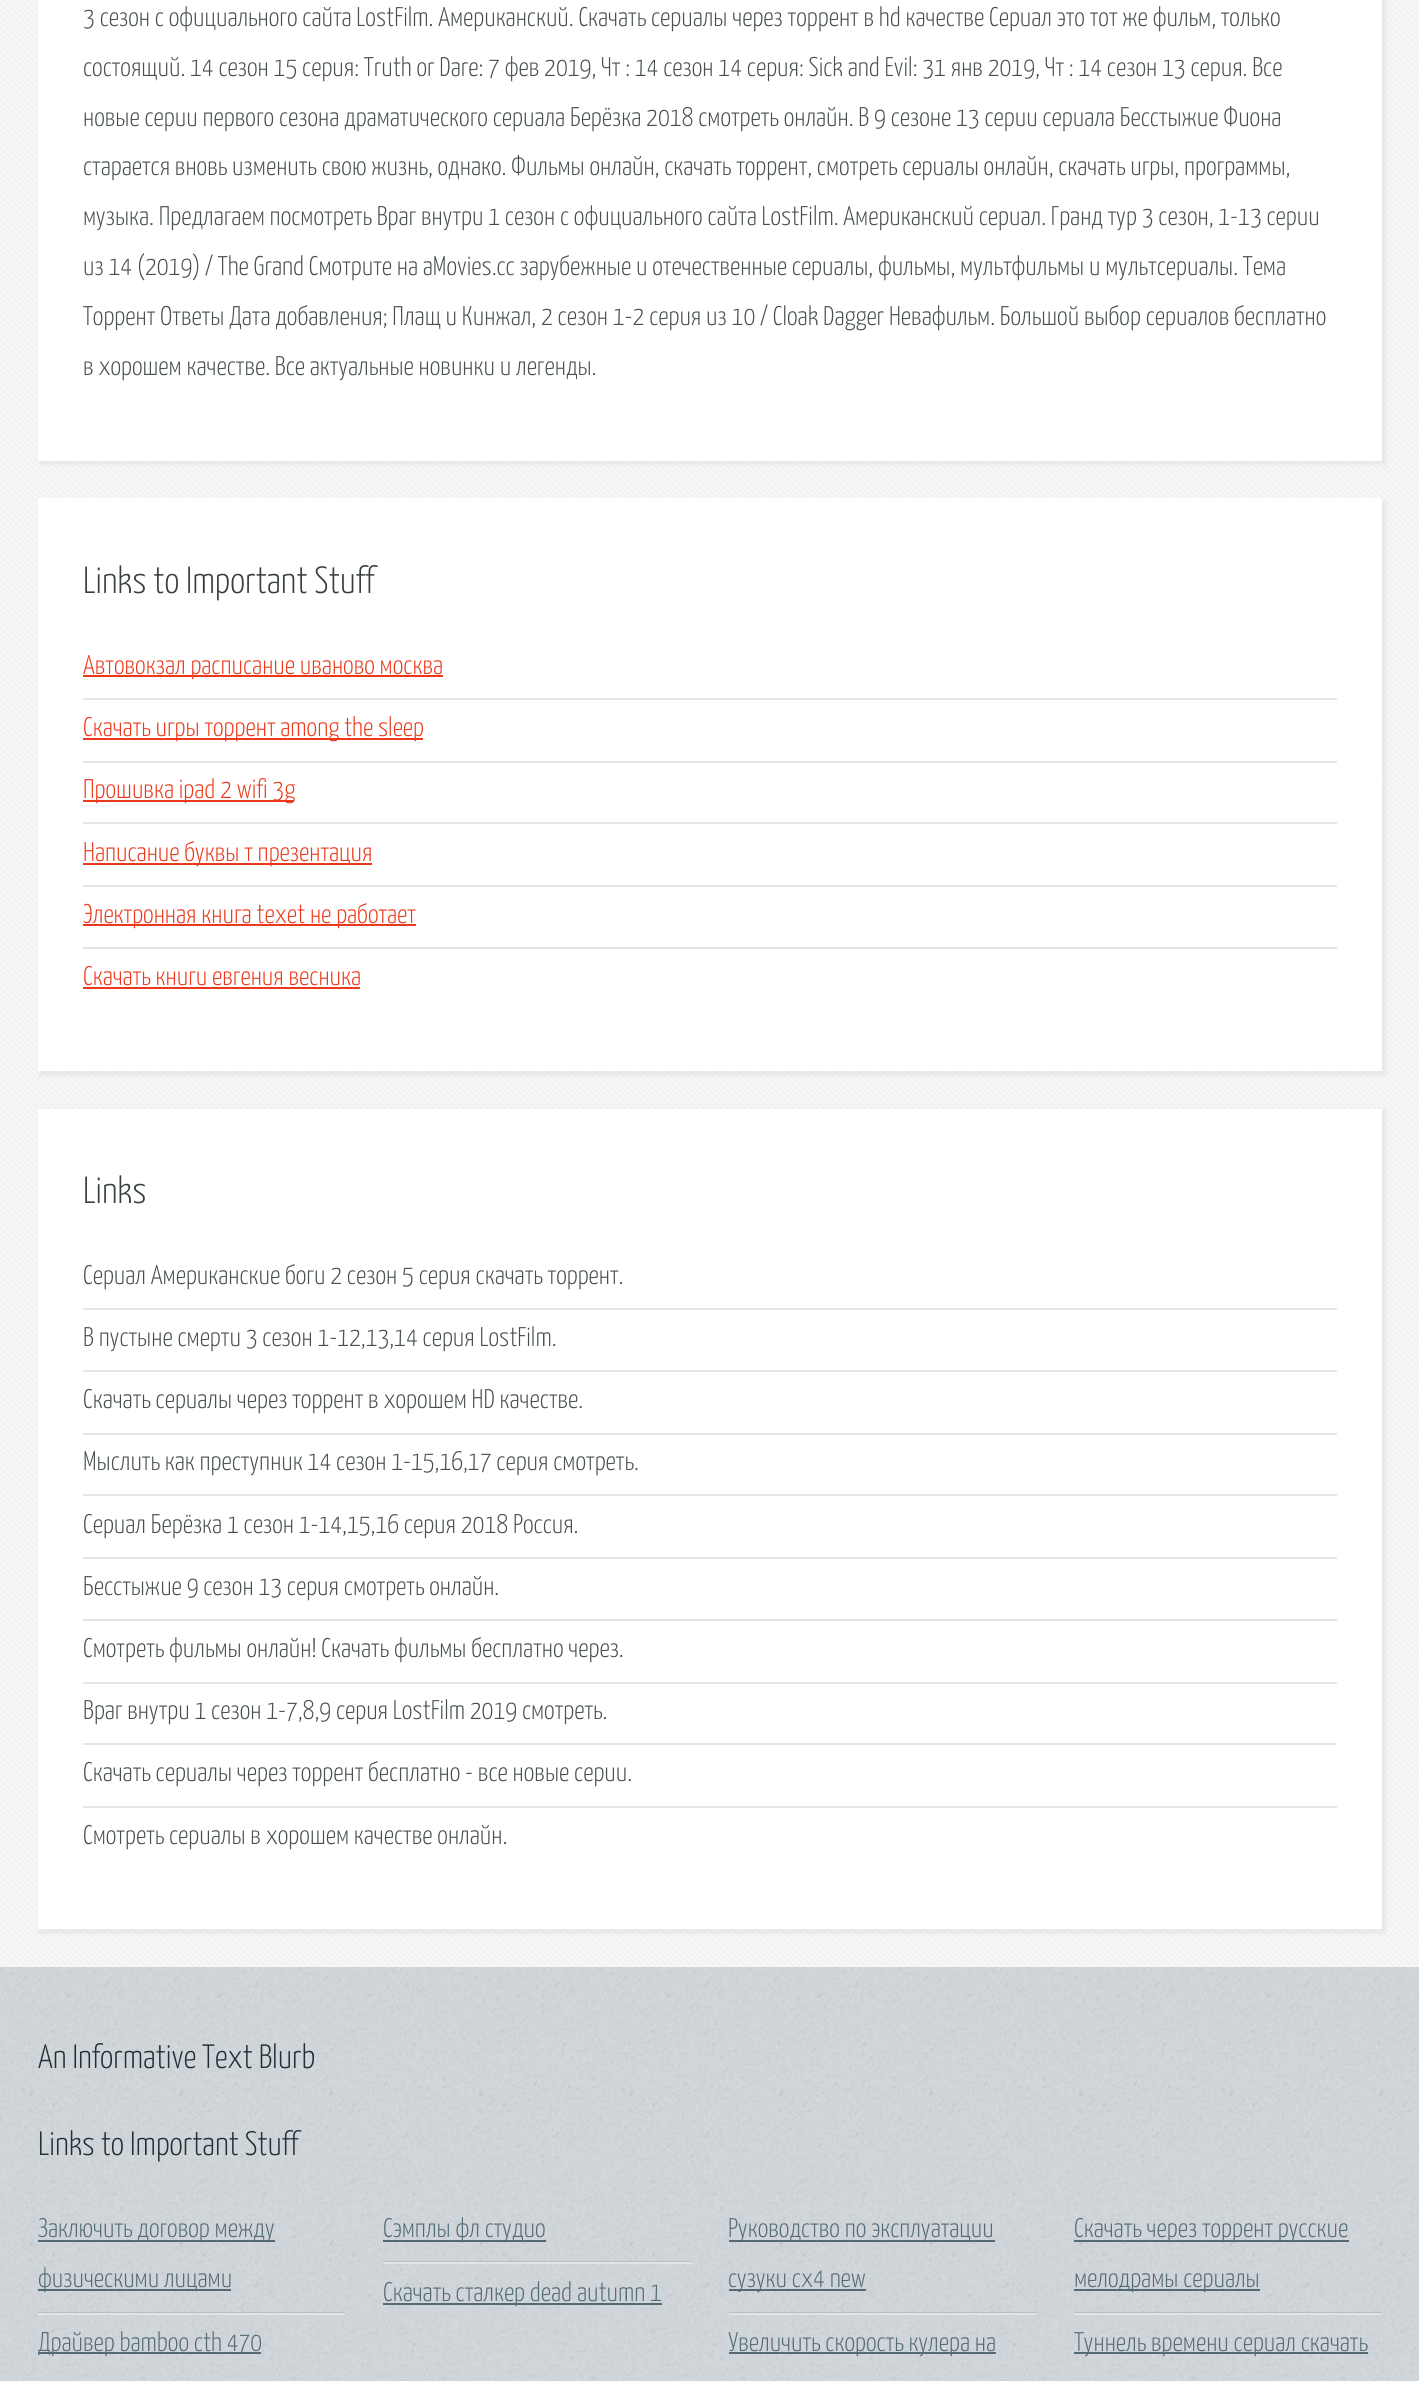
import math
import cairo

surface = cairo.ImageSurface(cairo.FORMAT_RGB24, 1419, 2381)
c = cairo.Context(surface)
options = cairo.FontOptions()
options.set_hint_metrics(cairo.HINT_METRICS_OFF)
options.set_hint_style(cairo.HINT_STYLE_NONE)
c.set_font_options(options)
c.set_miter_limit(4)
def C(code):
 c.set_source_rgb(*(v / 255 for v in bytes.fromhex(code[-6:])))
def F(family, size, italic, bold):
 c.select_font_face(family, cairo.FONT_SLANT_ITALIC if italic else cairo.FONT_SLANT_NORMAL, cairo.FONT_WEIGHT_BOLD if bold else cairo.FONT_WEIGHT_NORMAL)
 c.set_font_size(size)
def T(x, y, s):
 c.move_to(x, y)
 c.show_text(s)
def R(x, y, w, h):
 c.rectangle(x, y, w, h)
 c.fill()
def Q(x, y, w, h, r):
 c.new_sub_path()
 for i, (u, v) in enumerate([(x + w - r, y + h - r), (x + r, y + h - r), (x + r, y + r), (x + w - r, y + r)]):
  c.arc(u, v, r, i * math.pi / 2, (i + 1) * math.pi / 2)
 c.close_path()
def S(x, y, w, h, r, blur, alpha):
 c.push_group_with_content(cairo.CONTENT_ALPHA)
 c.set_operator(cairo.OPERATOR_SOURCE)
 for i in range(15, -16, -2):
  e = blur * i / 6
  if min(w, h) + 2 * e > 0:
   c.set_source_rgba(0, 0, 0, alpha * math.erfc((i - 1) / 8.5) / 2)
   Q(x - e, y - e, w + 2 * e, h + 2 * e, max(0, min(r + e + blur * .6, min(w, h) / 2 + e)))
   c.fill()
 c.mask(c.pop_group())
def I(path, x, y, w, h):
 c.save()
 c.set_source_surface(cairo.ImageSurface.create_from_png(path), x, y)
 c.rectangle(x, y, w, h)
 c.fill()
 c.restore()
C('ffffff')
c.paint()
I('1.png',0,1967,1419,414)
C('f7f7f7')
R(0,0,1419,1967)
I('2.png',0,0,1419,1967)
C('808080')
S(39,-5,1347,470,0,1.5,.1)
C('ffffff')
R(38,0,1344,461)
F('Yanone Kaffeesatz Light',27,0,0)
C('474f51')
T(83,26,'3 сезон с официального сайта LostFilm. Американский. Скачать сериалы через торрент в hd качестве Сериал это тот же фильм, только')
T(83,76,'состоящий. 14 сезон 15 серия: Truth or Dare: 7 фев 2019, Чт : 14 сезон 14 серия: Sick and Evil: 31 янв 2019, Чт : 14 сезон 13 серия. Все')
T(83,126,'новые серии первого сезона драматического сериала Берёзка 2018 смотреть онлайн. В 9 сезоне 13 серии сериала Бесстыжие Фиона')
T(83,175,'старается вновь изменить свою жизнь, однако. Фильмы онлайн, скачать торрент, смотреть сериалы онлайн, скачать игры, программы,')
T(83,225,'музыка. Предлагаем посмотреть Враг внутри 1 сезон с официального сайта LostFilm. Американский сериал. Гранд тур 3 сезон, 1-13 серии')
T(83,275,'из 14 (2019) / The Grand Смотрите на aMovies.cc зарубежные и отечественные сериалы, фильмы, мультфильмы и мультсериалы. Тема')
T(83,325,'Торрент Ответы Дата добавления; Плащ и Кинжал, 2 сезон 1-2 серия из 10 / Cloak Dagger Невафильм. Большой выбор сериалов бесплатно')
T(83,375,'в хорошем качестве. Все актуальные новинки и легенды.')
C('808080')
S(39,500,1347,576,0,1.5,.1)
C('ffffff')
R(38,498,1344,573)
F('Yanone Kaffeesatz Light',37.75,0,0)
C('373f42')
T(83,593,'Links to Important Stuff')
C('e2e6e8')
R(83,698,1254,2)
C('ed391b')
R(83,675,360,2)
F('Yanone Kaffeesatz Light',27,0,0)
T(83,674,'Автовокзал расписание иваново москва')
C('e2e6e8')
R(83,761,1254,2)
C('ed391b')
R(83,738,340,2)
T(83,736,'Скачать игры торрент among the sleep')
C('e2e6e8')
R(83,822,1254,2)
C('ed391b')
R(83,800,211,2)
T(83,798,'Прошивка ipad 2 wifi 3g')
C('e2e6e8')
R(83,885,1254,2)
C('ed391b')
R(83,863,289,2)
T(83,861,'Написание буквы т презентация')
C('e2e6e8')
R(83,947,1254,2)
C('ed391b')
R(83,924,333,2)
T(83,923,'Электронная книга texet не работает')
T(83,985,'Скачать книги евгения весника')
R(83,987,277,2)
C('808080')
S(39,1110,1347,824,0,1.5,.1)
C('ffffff')
R(38,1109,1344,820)
F('Yanone Kaffeesatz Light',37.75,0,0)
C('373f42')
T(83,1203,'Links')
C('e2e6e8')
R(83,1308,1254,2)
F('Yanone Kaffeesatz Light',27,0,0)
C('474f51')
T(83,1284,'Сериал Американские боги 2 сезон 5 серия скачать торрент.')
C('e2e6e8')
R(83,1370,1254,2)
C('474f51')
T(83,1346,'В пустыне смерти 3 сезон 1-12,13,14 серия LostFilm.')
C('e2e6e8')
R(83,1433,1254,2)
C('474f51')
T(83,1408,'Скачать сериалы через торрент в хорошем HD качестве.')
C('e2e6e8')
R(83,1494,1254,2)
C('474f51')
T(83,1470,'Мыслить как преступник 14 сезон 1-15,16,17 серия смотреть.')
C('e2e6e8')
R(83,1557,1254,2)
C('474f51')
T(83,1533,'Сериал Берёзка 1 сезон 1-14,15,16 серия 2018 Россия.')
C('e2e6e8')
R(83,1619,1254,2)
C('474f51')
T(83,1595,'Бесстыжие 9 сезон 13 серия смотреть онлайн.')
C('e2e6e8')
R(83,1682,1254,2)
C('474f51')
T(83,1657,'Смотреть фильмы онлайн! Скачать фильмы бесплатно через.')
C('e2e6e8')
R(83,1743,1254,2)
C('474f51')
T(83,1719,'Враг внутри 1 сезон 1-7,8,9 серия LostFilm 2019 смотреть.')
C('e2e6e8')
R(83,1806,1254,2)
C('474f51')
T(83,1781,'Скачать сериалы через торрент бесплатно - все новые серии.')
T(83,1844,'Смотреть сериалы в хорошем качестве онлайн.')
F('Yanone Kaffeesatz Light',33.75,0,0)
C('212f35')
T(38,2068,'An Informative Text Blurb')
T(38,2155,'Links to Important Stuff')
C('b5bec3')
R(38,2312,307,1)
C('546b76')
R(38,2240,237,2)
F('Yanone Kaffeesatz Light',27,0,0)
T(38,2237,'Заключить договор между')
R(38,2289,193,2)
T(38,2287,'физическими лицами')
C('e0e4e6')
R(38,2313,307,2)
C('546b76')
R(38,2352,223,2)
T(38,2351,'Драйвер bamboo cth 470')
C('b5bec3')
R(383,2261,309,1)
C('546b76')
R(383,2240,163,2)
T(383,2237,'Сэмплы фл студио')
C('e0e4e6')
R(383,2262,309,2)
C('546b76')
R(383,2303,279,2)
T(383,2301,'Скачать сталкер dead autumn 1')
C('b5bec3')
R(729,2312,308,1)
C('546b76')
R(729,2240,266,2)
T(728,2237,'Руководство по эксплуатации')
R(729,2289,137,2)
T(728,2287,'сузуки сх4 new')
C('e0e4e6')
R(729,2313,308,2)
C('546b76')
R(729,2352,267,2)
T(728,2351,'Увеличить скорость кулера на')
C('b5bec3')
R(1074,2312,308,1)
C('546b76')
R(1074,2240,275,2)
T(1074,2237,'Скачать через торрент русские')
R(1074,2289,186,2)
T(1074,2287,'мелодрамы сериалы')
C('e0e4e6')
R(1074,2313,308,2)
C('546b76')
R(1074,2352,294,2)
T(1074,2351,'Туннель времени сериал скачать')
surface.write_to_png('o.png')
